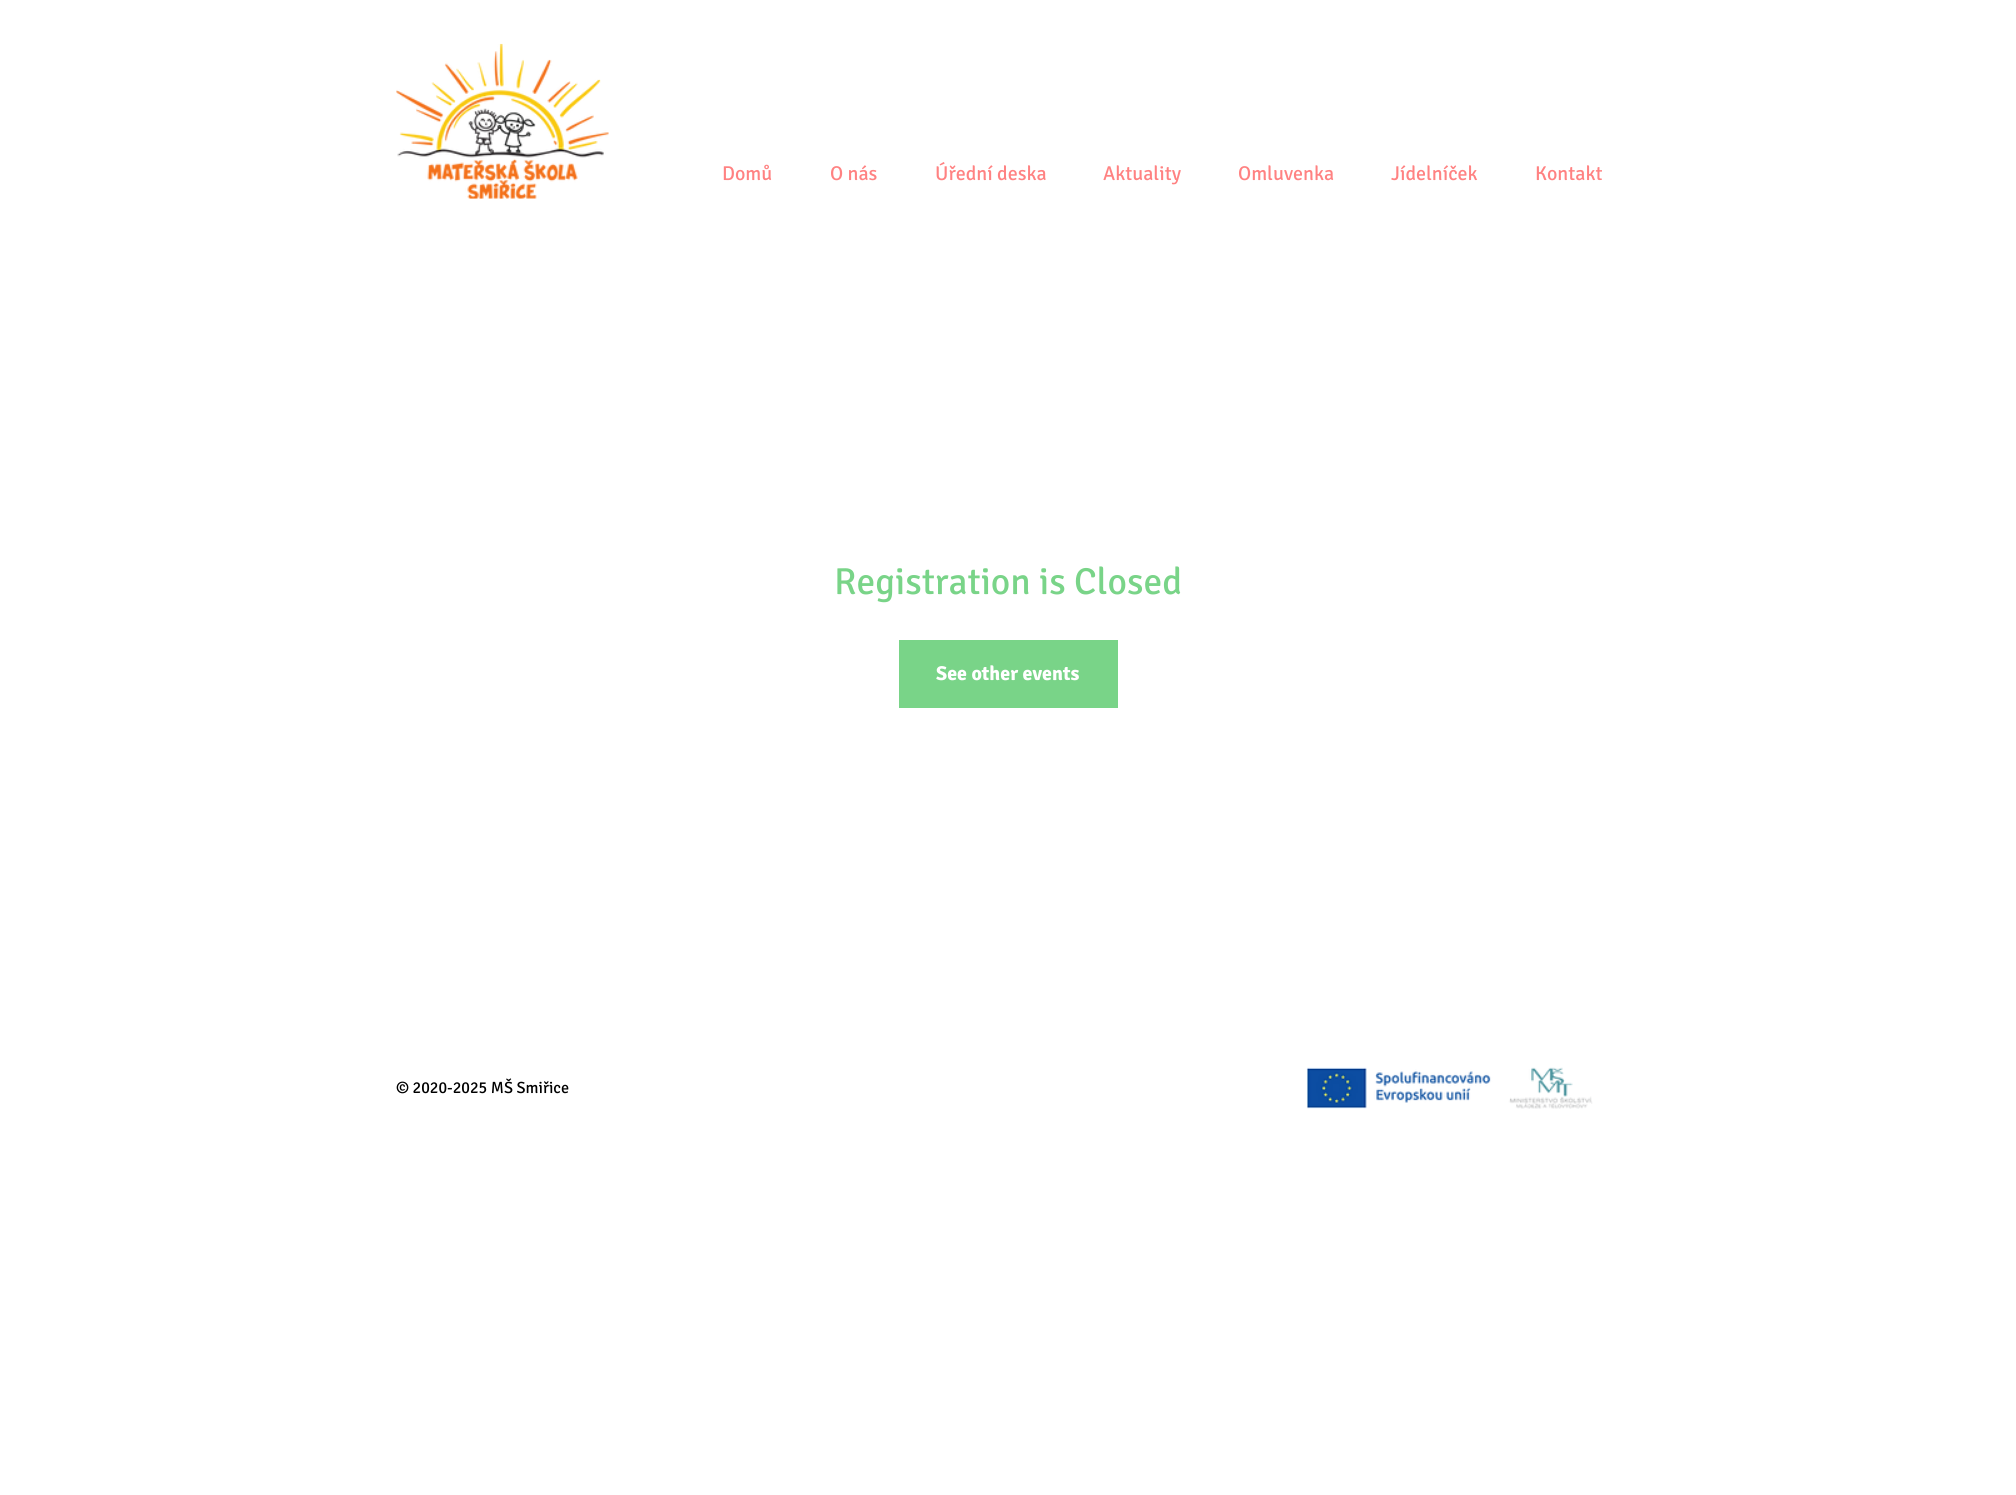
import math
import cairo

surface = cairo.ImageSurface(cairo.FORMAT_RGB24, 2016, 1495)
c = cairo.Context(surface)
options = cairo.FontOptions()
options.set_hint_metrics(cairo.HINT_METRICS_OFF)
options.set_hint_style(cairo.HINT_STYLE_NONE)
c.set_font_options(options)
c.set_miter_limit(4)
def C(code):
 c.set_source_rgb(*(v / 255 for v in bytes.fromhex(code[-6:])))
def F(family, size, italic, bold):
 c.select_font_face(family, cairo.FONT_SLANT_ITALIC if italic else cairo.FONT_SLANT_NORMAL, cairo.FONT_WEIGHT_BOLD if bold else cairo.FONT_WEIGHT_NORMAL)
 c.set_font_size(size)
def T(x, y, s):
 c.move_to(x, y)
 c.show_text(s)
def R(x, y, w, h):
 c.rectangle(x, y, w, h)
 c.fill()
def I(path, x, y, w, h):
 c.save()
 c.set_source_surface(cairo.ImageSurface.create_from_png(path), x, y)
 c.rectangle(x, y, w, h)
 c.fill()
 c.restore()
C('ffffff')
c.paint()
I('1.png',396,43,213,156)
F('Signika',20,0,0)
C('ff8282')
T(722,180,'Domů')
T(830,180,'O nás')
T(935,180,'Úřední deska')
T(1103,180,'Aktuality')
T(1238,180,'Omluvenka')
T(1391,180,'Jídelníček')
T(1535,180,'Kontakt')
F('Signika',37.5,0,0)
C('79d488')
T(834,594,'Registration is Closed')
R(899,640,219,68)
F('Signika',20,0,1)
C('ffffff')
T(936,680,'See other events')
F('Signika',16.25,0,0)
C('000000')
T(396,1093,'© 2020-2025 MŠ Smiřice')
I('2.png',1306,1067,287,42)
surface.write_to_png('o.png')
